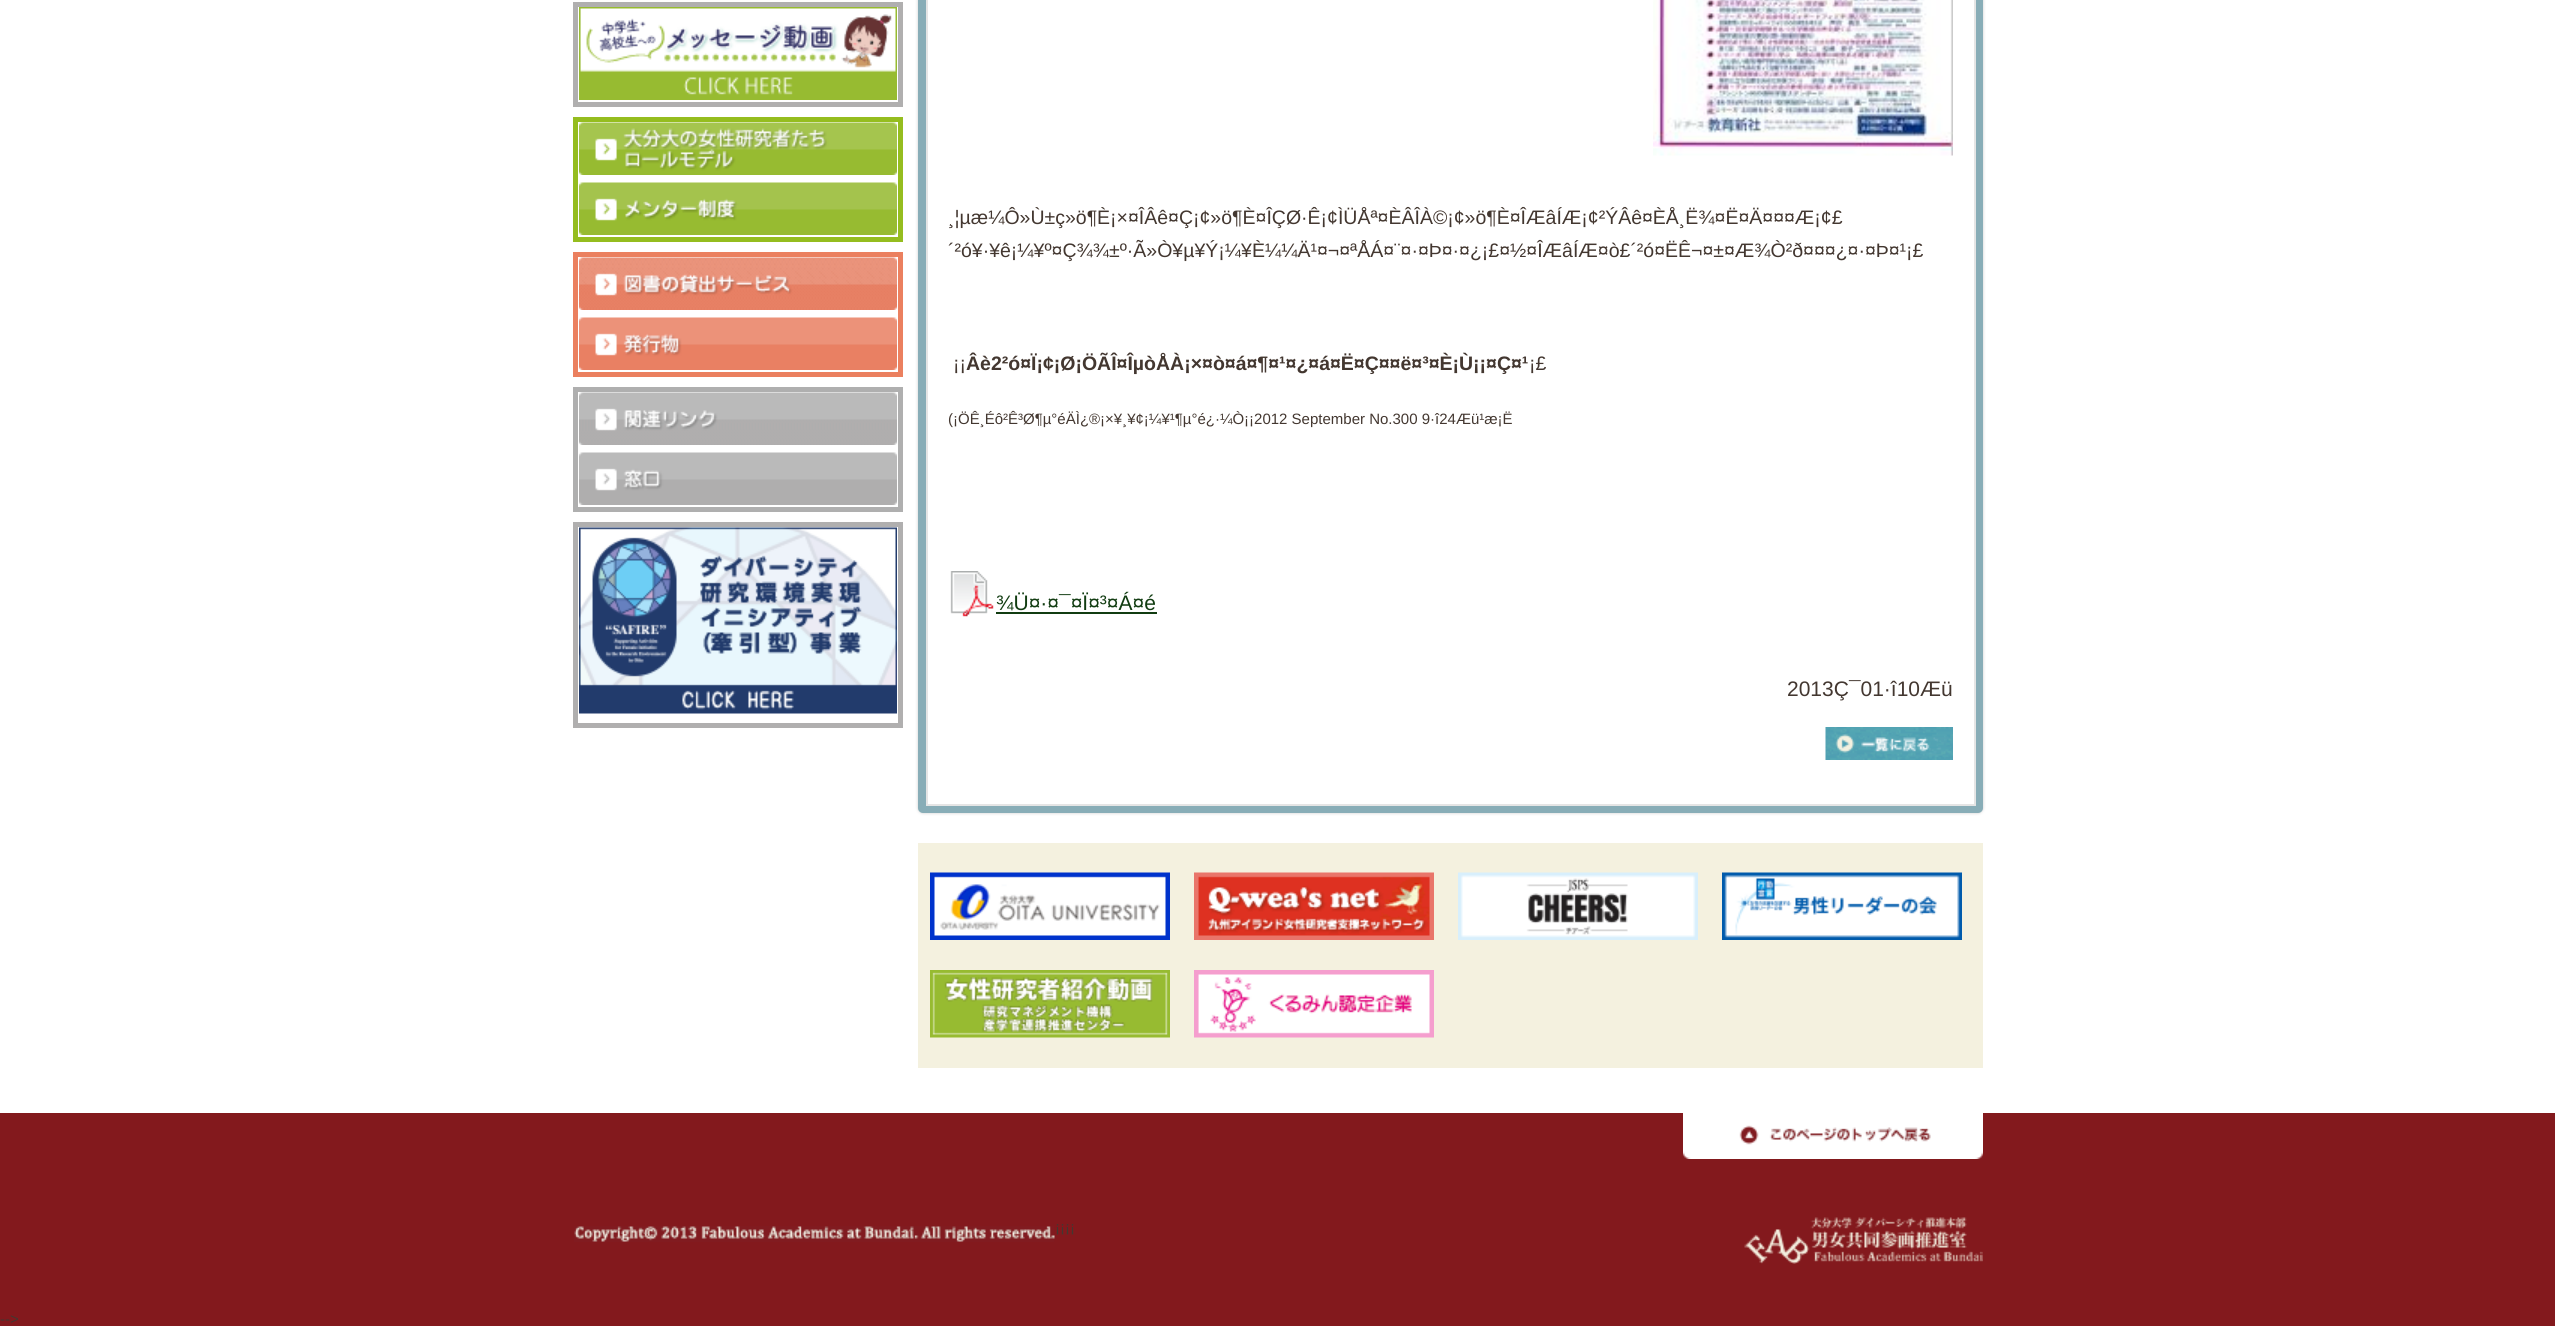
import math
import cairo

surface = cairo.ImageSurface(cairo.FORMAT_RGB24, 2555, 1326)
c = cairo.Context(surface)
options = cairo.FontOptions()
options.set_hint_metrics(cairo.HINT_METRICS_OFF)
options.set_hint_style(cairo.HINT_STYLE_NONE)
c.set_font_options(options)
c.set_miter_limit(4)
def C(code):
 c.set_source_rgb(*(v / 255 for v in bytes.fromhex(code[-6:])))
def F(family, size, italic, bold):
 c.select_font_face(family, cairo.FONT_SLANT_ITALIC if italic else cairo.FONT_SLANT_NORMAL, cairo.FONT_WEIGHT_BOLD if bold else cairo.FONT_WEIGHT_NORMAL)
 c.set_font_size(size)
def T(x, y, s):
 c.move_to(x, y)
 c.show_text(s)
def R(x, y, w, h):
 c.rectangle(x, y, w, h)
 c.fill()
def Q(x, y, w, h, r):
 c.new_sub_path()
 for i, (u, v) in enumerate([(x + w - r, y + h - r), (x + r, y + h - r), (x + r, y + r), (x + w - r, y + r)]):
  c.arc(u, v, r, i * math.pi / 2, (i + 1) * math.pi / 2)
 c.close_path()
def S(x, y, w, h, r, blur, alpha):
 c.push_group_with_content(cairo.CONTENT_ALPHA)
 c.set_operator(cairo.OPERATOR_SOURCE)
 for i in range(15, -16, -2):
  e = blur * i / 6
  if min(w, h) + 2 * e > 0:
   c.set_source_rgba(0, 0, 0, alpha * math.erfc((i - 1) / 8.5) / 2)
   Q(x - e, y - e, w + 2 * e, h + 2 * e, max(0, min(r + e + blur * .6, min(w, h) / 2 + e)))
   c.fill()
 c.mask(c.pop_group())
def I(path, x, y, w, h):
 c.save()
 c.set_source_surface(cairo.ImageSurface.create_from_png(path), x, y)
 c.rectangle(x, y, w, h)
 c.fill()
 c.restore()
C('ffffff')
c.paint()
c.rectangle(575.5,4.5,325,100)
C('b0afaf')
c.set_line_width(5)
c.stroke()
I('1.png',579,7,318,93)
c.rectangle(575.5,119.5,325,120)
C('95bd1f')
c.stroke()
I('2.png',579,122,318,53)
I('3.png',579,182,318,53)
c.rectangle(575.5,254.5,325,120)
C('eb805f')
c.stroke()
I('4.png',579,257,318,53)
I('5.png',579,317,318,53)
c.rectangle(575.5,389.5,325,120)
C('afafaf')
c.stroke()
I('6.png',579,392,318,53)
I('7.png',579,452,318,53)
c.rectangle(575.5,524.5,325,201)
C('b0afaf')
c.stroke()
I('8.png',579,527,318,187)
C('cccccc')
S(918,-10,1065,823,5,1.5,1)
C('88adb7')
Q(918,-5,1065,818,5)
c.fill()
C('ffffff')
c.rectangle(927,-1,1048,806)
c.fill_preserve()
C('e5e5e5')
c.set_line_width(2)
c.stroke()
I('9.png',1653,0,300,156)
F('Liberation Sans',19.5,0,0)
C('433730')
T(948,224,'¸¦µæ¼Ô»Ù±ç»ö¶È¡×¤ÎÂê¤Ç¡¢»ö¶È¤ÎÇØ·Ê¡¢ÌÜÅª¤ÈÂÎÀ©¡¢»ö¶È¤ÎÆâÍÆ¡¢²ÝÂê¤ÈÅ¸Ë¾¤Ë¤Ä¤¤¤Æ¡¢£')
T(948,257,'´²ó¥·¥ê¡¼¥º¤Ç¾¾±º·Ã»Ò¥µ¥Ý¡¼¥È¼¼Ä¹¤¬¤ªÅÁ¤¨¤·¤Þ¤·¤¿¡£¤½¤ÎÆâÍÆ¤ò£´²ó¤ËÊ¬¤±¤Æ¾Ò²ð¤¤¤¿¤·¤Þ¤¹¡£')
T(953,370,'¡¡')
F('Liberation Sans',19.5,0,1)
T(966,370,'Âè2²ó¤Ï¡¢¡Ø¡ÖÃÎ¤ÎµòÅÀ¡×¤ò¤á¤¶¤¹¤¿¤á¤Ë¤Ç¤¤ë¤³¤È¡Ù¡¡¤Ç¤¹')
F('Liberation Sans',19.5,0,0)
T(1529,370,'¡£')
F('Liberation Sans',15,0,0)
T(948,424,'(¡ÖÊ¸Éô²Ê³Ø¶µ°éÄÌ¿®¡×¥¸¥¢¡¼¥¹¶µ°é¿·¼Ò¡¡2012 September No.300 9·î24Æü¹æ¡Ë')
I('10.png',950,571,44,46)
F('Liberation Sans',21,0,0)
C('113c11')
T(996,610,'¾Ü¤·¤¯¤Ï¤³¤Á¤é')
R(996,612,161,2)
C('433730')
T(1787,696,'2013Ç¯01·î10Æü')
I('11.png',1825,727,128,33)
C('f4f1df')
R(918,843,1065,225)
I('12.png',930,872,240,68)
I('13.png',1194,872,240,68)
I('14.png',1458,872,240,68)
I('15.png',1722,872,240,68)
I('16.png',930,970,240,68)
I('17.png',1194,970,240,68)
C('83191d')
R(0,1113,2555,213)
I('18.png',1683,1113,300,46)
I('19.png',574,1226,481,16)
F('Liberation Sans',15,0,0)
C('433730')
T(1055,1232,'¡¡¡¡')
I('20.png',1744,1217,239,47)
T(0,1324,'-->')
surface.write_to_png('o.png')
